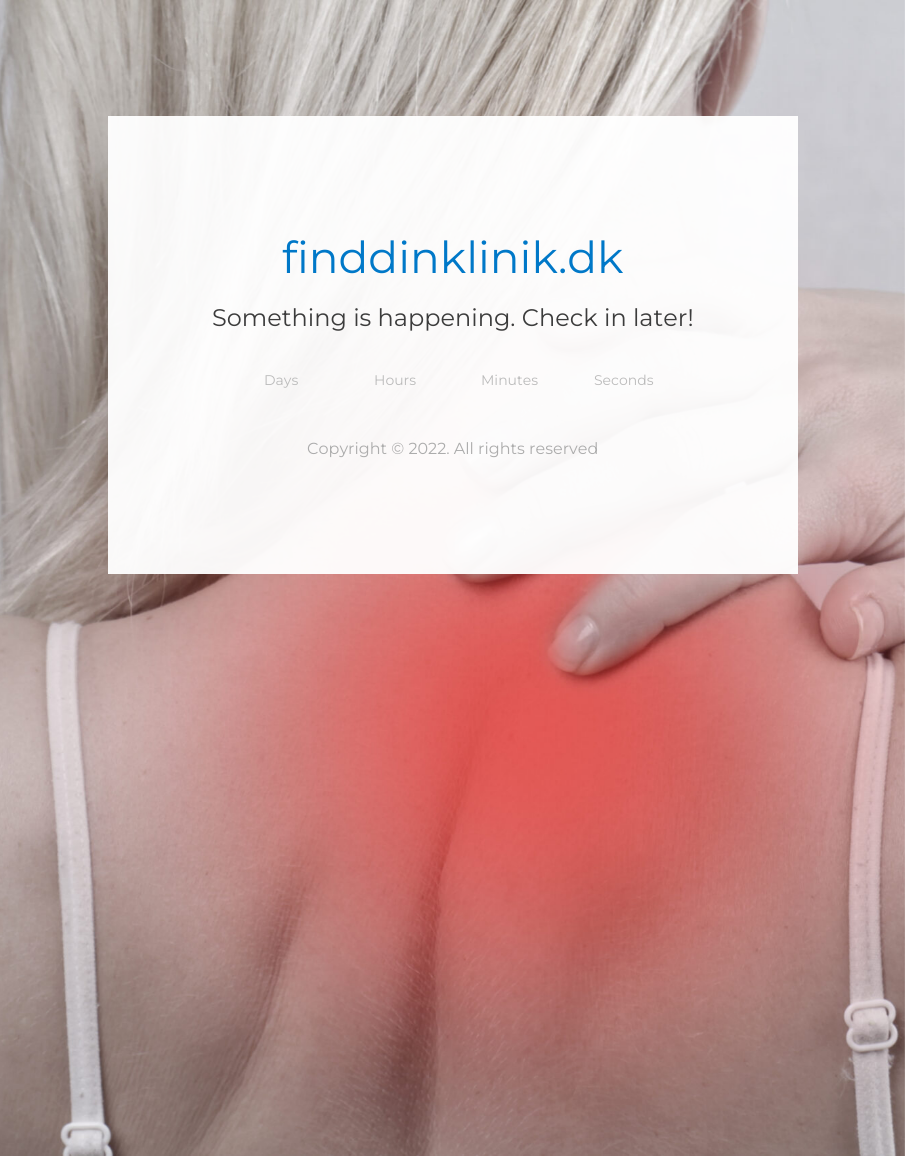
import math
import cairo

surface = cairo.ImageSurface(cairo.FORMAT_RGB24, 905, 1156)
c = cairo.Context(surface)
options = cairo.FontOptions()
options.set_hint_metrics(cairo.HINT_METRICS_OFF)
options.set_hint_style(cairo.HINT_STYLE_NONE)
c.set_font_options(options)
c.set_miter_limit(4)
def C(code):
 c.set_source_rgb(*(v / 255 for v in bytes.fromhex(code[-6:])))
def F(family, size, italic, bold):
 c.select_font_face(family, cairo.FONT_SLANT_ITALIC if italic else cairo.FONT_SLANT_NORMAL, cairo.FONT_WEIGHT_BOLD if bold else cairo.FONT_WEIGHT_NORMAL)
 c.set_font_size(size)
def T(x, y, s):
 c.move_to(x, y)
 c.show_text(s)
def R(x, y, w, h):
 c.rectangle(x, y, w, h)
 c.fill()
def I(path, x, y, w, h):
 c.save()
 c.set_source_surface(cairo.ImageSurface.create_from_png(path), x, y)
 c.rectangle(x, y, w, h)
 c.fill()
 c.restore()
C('ffffff')
c.paint()
I('1.png',0,0,905,1156)
c.set_source_rgba(1,1,1,0.95)
R(108,116,690,458)
F('Montserrat',44,0,0)
C('0078c8')
T(282,273,'finddinklinik.dk')
F('Montserrat',24,0,0)
C('3c3c3c')
T(212,326,'Something is happening. Check in later!')
F('Montserrat',14,0,0)
C('bbbbbb')
T(264,385,'Days')
T(374,385,'Hours')
T(481,385,'Minutes')
T(594,385,'Seconds')
F('Montserrat',16,0,0)
C('acacac')
T(307,454,'Copyright © 2022. All rights reserved')
surface.write_to_png('o.png')
